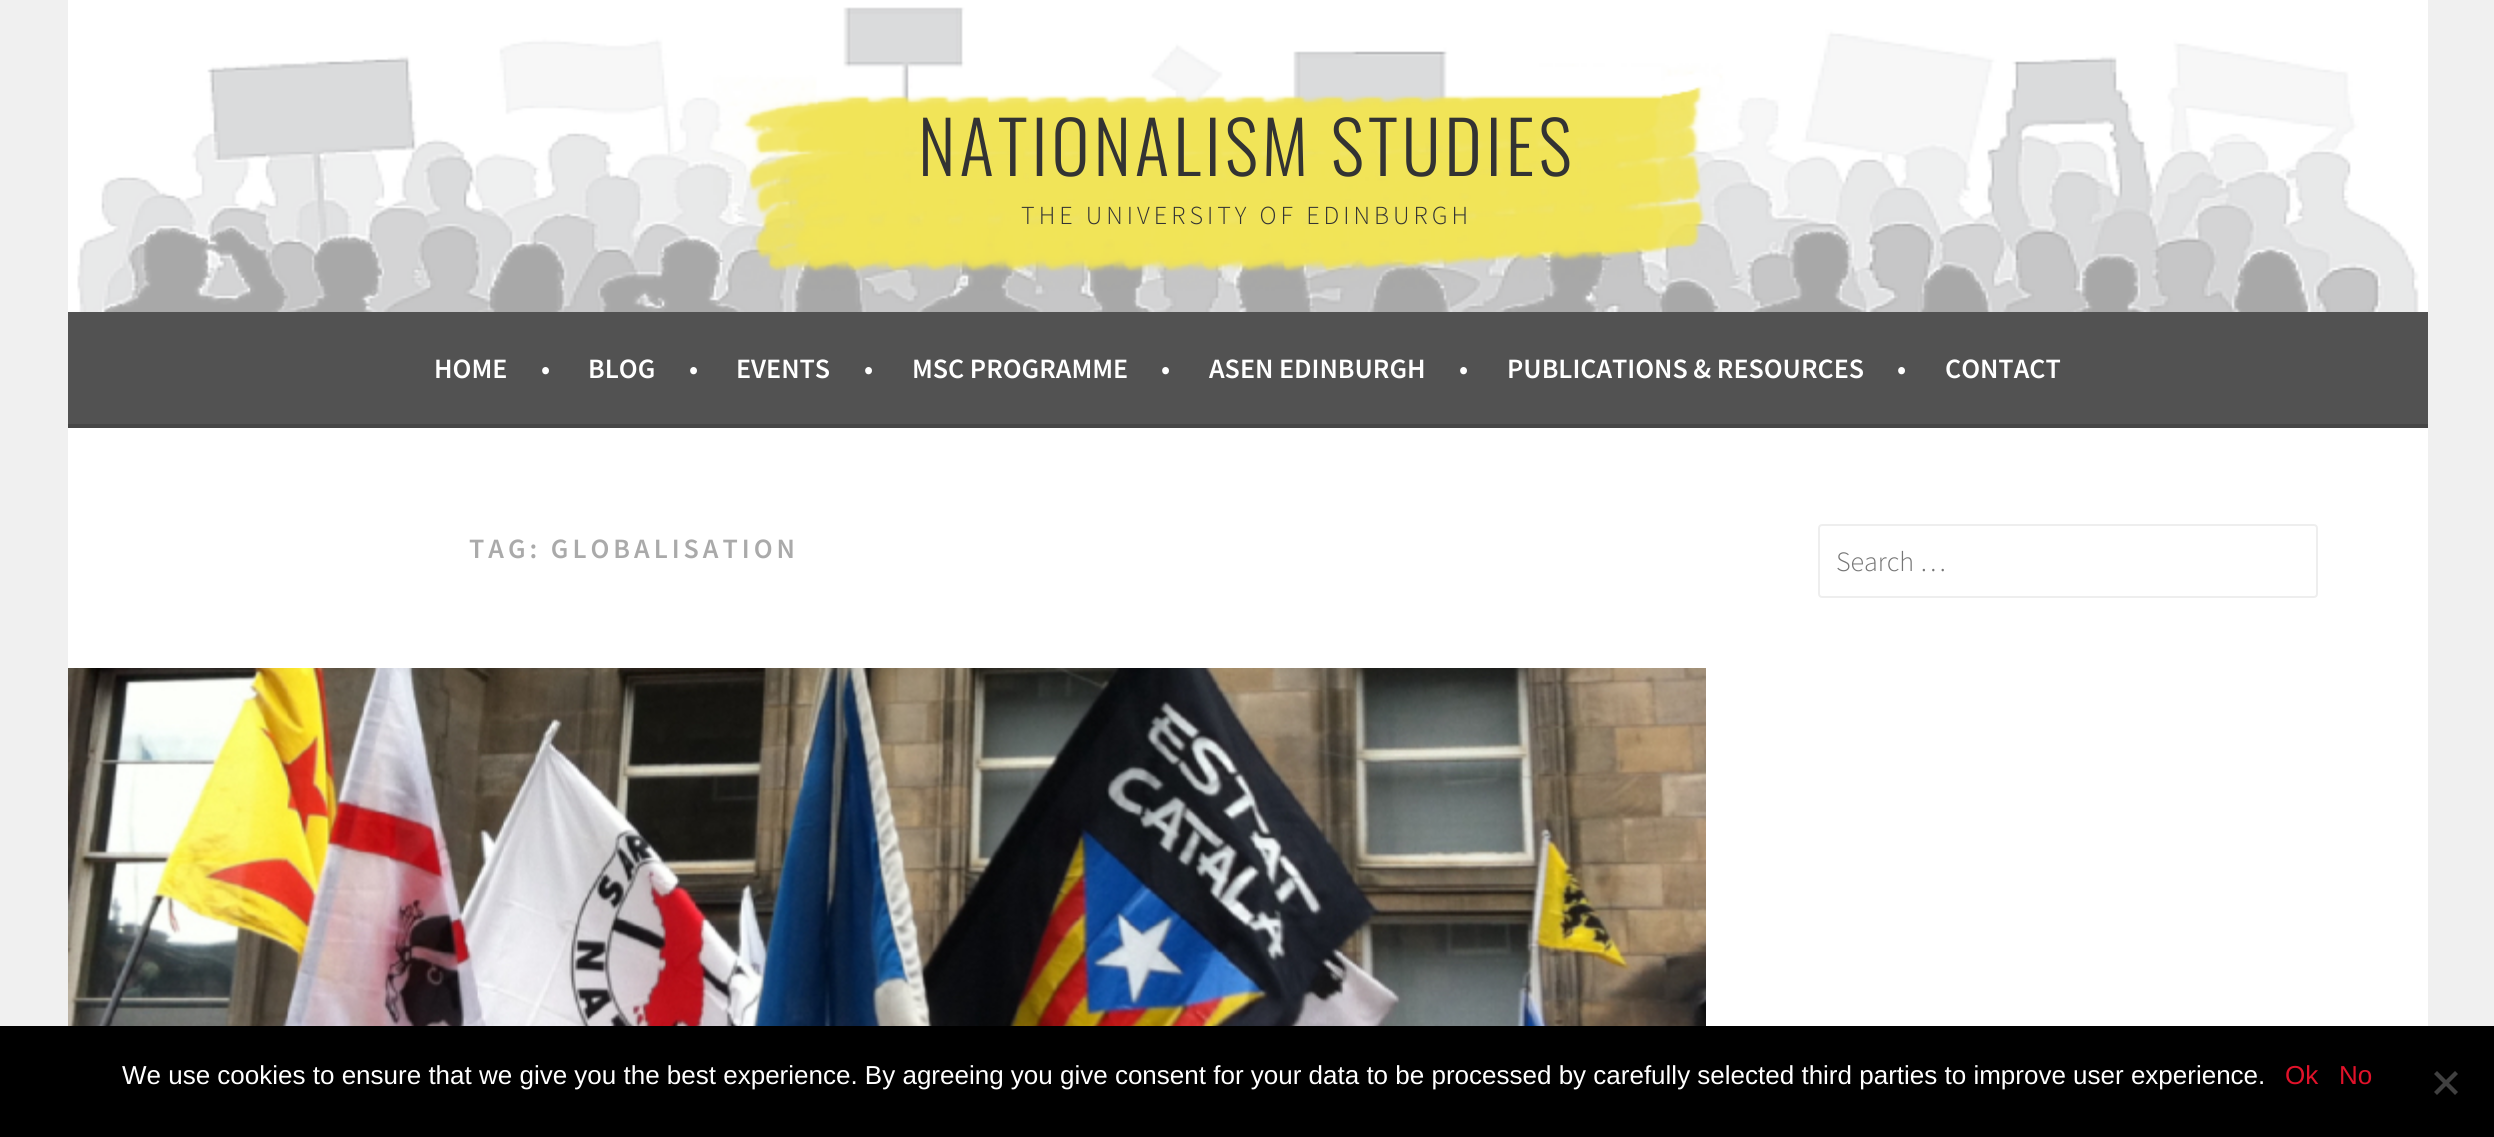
import math
import cairo

surface = cairo.ImageSurface(cairo.FORMAT_RGB24, 2494, 1137)
c = cairo.Context(surface)
options = cairo.FontOptions()
options.set_hint_metrics(cairo.HINT_METRICS_OFF)
options.set_hint_style(cairo.HINT_STYLE_NONE)
c.set_font_options(options)
c.set_miter_limit(4)
def C(code):
 c.set_source_rgb(*(v / 255 for v in bytes.fromhex(code[-6:])))
def F(family, size, italic, bold):
 c.select_font_face(family, cairo.FONT_SLANT_ITALIC if italic else cairo.FONT_SLANT_NORMAL, cairo.FONT_WEIGHT_BOLD if bold else cairo.FONT_WEIGHT_NORMAL)
 c.set_font_size(size)
def T(x, y, s):
 c.move_to(x, y)
 c.show_text(s)
def L(x, y, s, letter, word):
 c.move_to(x, y)
 for ch in s:
  c.show_text(ch)
  c.rel_move_to(letter + word * (ch == ' '), 0)
def R(x, y, w, h):
 c.rectangle(x, y, w, h)
 c.fill()
def Q(x, y, w, h, r):
 c.new_sub_path()
 for i, (u, v) in enumerate([(x + w - r, y + h - r), (x + r, y + h - r), (x + r, y + r), (x + w - r, y + r)]):
  c.arc(u, v, r, i * math.pi / 2, (i + 1) * math.pi / 2)
 c.close_path()
def I(path, x, y, w, h):
 c.save()
 c.set_source_surface(cairo.ImageSurface.create_from_png(path), x, y)
 c.rectangle(x, y, w, h)
 c.fill()
 c.restore()
C('f0f0f0')
c.paint()
C('ffffff')
R(68,0,2360,312)
I('1.png',77,7,2342,305)
F('Oswald Light',72,0,0)
C('333333')
L(918,176,'NATIONALISM STUDIES',4,0)
F('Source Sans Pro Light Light',26,0,0)
L(1021,224,'THE UNIVERSITY OF EDINBURGH',4,0)
C('525252')
R(68,312,2360,112)
C('464646')
R(68,424,2360,4)
F('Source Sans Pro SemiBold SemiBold',28,0,0)
C('ffffff')
T(434,378,'HOME')
T(541,378,'•')
T(588,378,'BLOG')
T(689,378,'•')
T(736,378,'EVENTS')
T(864,378,'•')
T(912,378,'MSC PROGRAMME')
T(1161,378,'•')
T(1209,378,'ASEN EDINBURGH')
T(1459,378,'•')
T(1507,378,'PUBLICATIONS & RESOURCES')
T(1897,378,'•')
T(1945,378,'CONTACT')
R(68,428,2360,598)
C('aaaaaa')
L(469,558,'TAG: GLOBALISATION',4,0)
I('2.png',68,668,1638,358)
Q(1819,525,498,72,3)
C('eeeeee')
c.stroke()
F('Source Sans Pro Light Light',28,0,0)
C('757575')
T(1836,571,'Search …')
C('000000')
R(0,1026,2494,111)
F('Liberation Sans',26,0,0)
C('ffffff')
T(122,1084,'We use cookies to ensure that we give you the best experience. By agreeing you give consent for your data to be processed by carefully selected third parties to improve user experience.')
C('e1122a')
T(2285,1084,'Ok')
T(2339,1084,'No')
C('404040')
c.new_path()
c.move_to(2455,1071)
c.line_to(2458,1074)
c.line_to(2437,1095)
c.line_to(2434,1092)
c.close_path()
c.fill()
c.new_path()
c.move_to(2434,1074)
c.line_to(2437,1071)
c.line_to(2458,1092)
c.line_to(2455,1095)
c.close_path()
c.fill()
surface.write_to_png('o.png')
